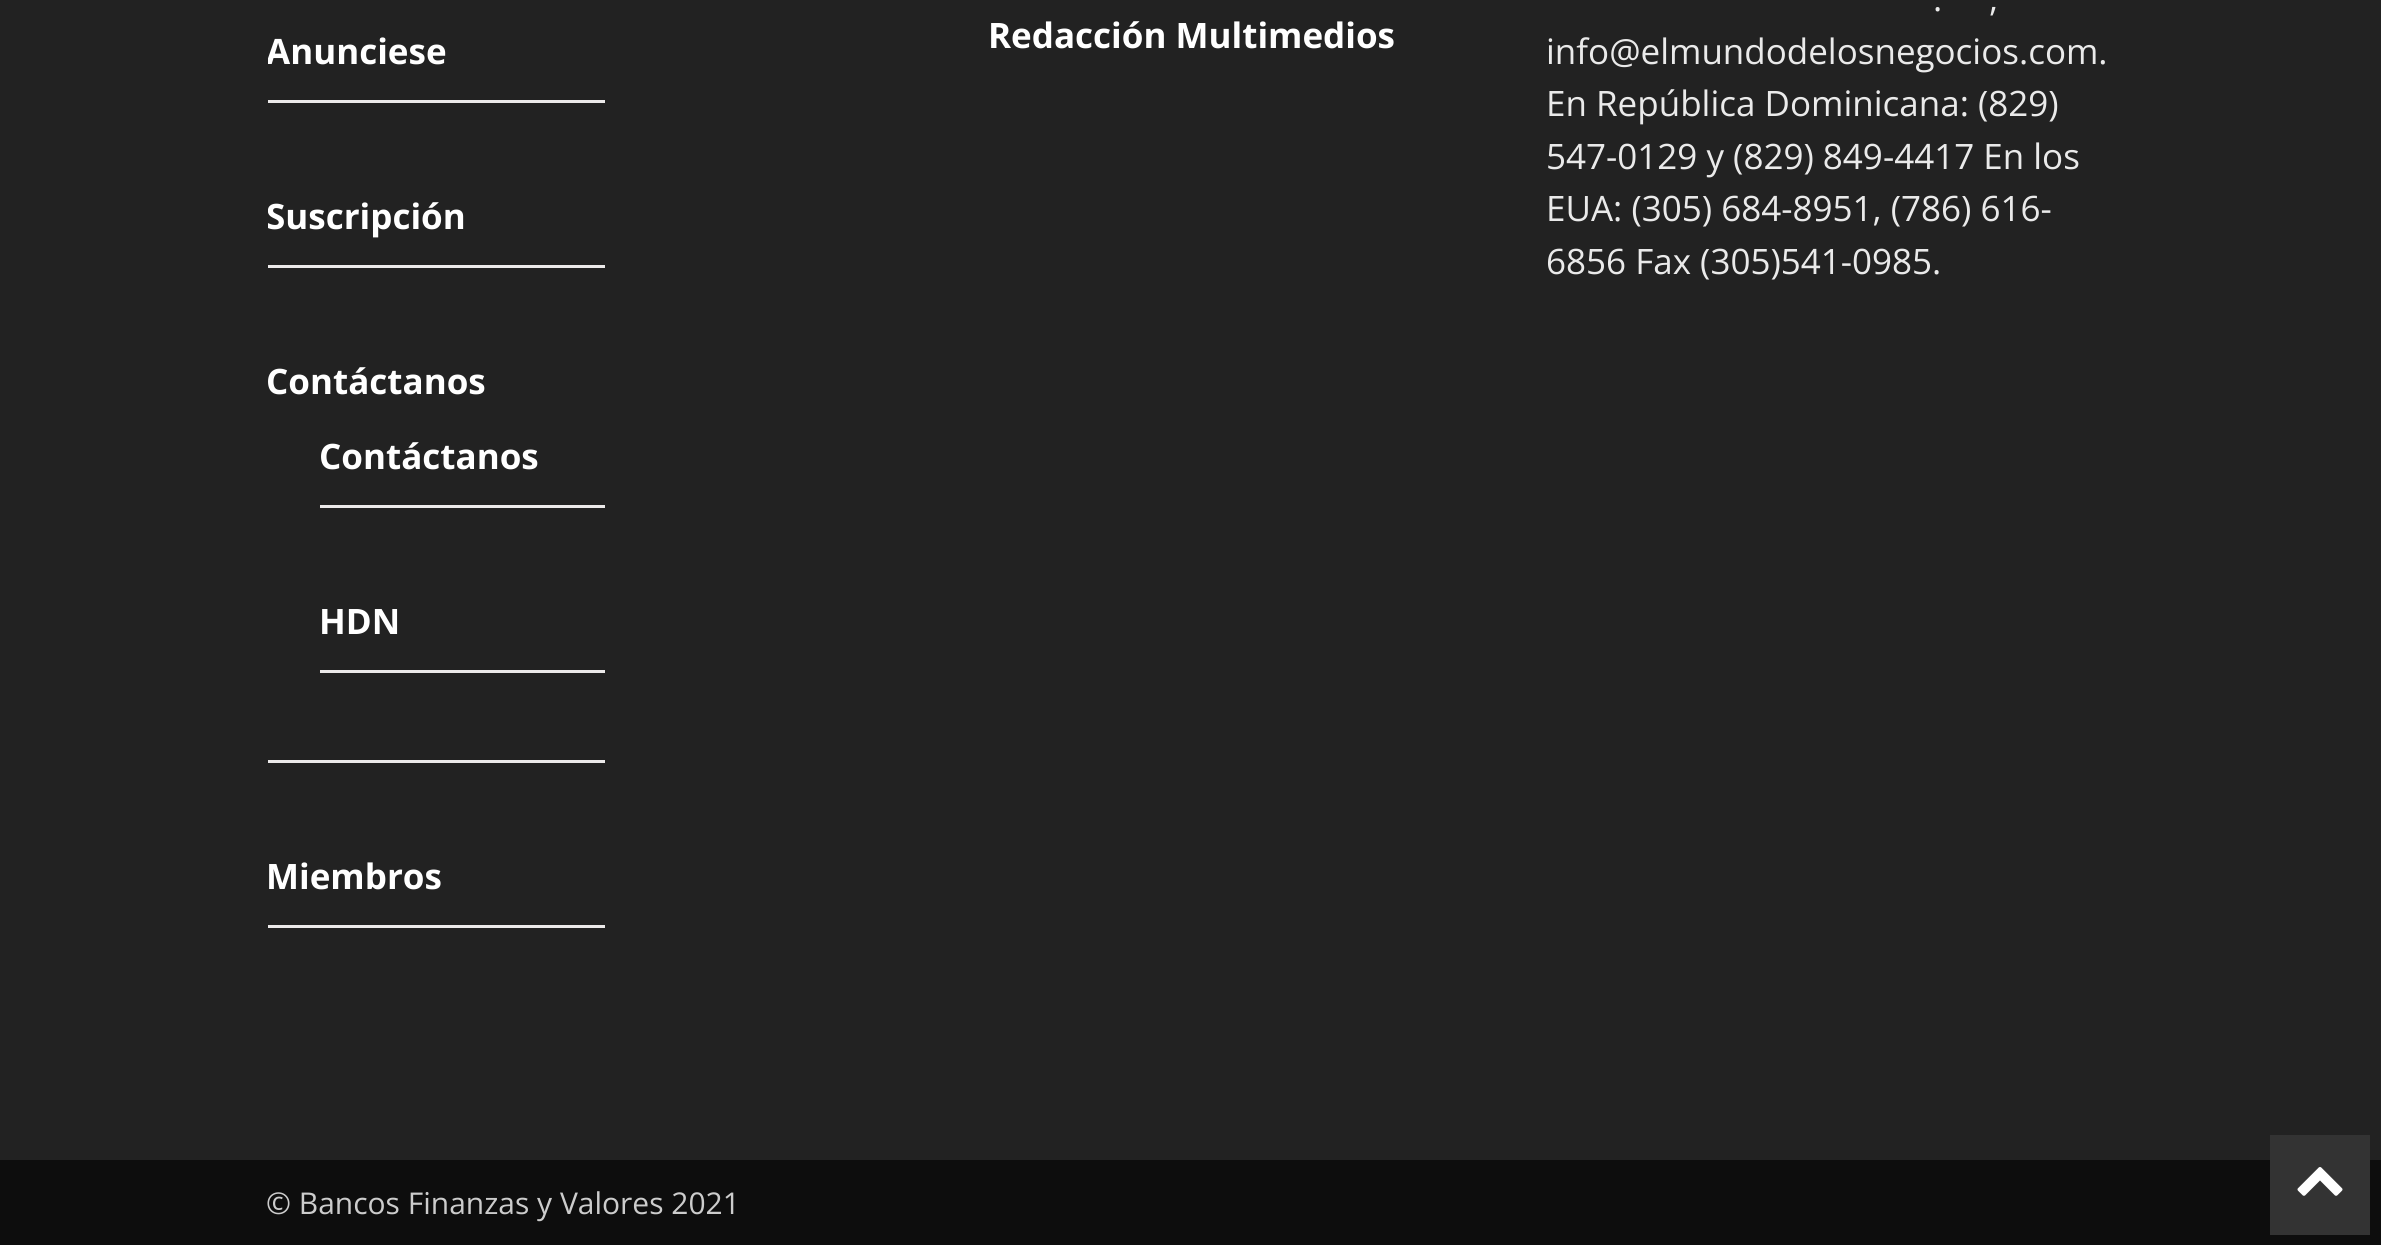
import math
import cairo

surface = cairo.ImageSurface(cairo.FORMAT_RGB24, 2381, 1245)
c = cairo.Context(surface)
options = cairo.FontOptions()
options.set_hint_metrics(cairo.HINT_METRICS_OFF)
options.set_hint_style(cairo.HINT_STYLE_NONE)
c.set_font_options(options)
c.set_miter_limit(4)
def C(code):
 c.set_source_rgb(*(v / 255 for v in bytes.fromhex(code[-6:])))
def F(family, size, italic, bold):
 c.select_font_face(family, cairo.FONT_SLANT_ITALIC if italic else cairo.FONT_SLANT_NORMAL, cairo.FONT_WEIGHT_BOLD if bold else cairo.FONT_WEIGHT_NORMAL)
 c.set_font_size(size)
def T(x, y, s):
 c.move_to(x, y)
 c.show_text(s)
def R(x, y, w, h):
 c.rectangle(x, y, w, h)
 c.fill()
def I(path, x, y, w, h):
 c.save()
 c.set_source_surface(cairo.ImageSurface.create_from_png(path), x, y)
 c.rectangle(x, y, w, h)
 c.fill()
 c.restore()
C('0d0d0d')
c.paint()
C('222222')
R(0,0,2381,1160)
C('eceaea')
R(268,100,337,3)
c.save()
c.rectangle(268,13,337,87)
c.clip()
F('Open Sans',35,0,1)
C('ffffff')
T(266,64,'Anunciese')
c.restore()
R(268,265,337,3)
c.save()
c.rectangle(268,178,337,87)
c.clip()
F('Open Sans',35,0,1)
C('ffffff')
T(266,229,'Suscripción')
c.restore()
R(268,760,337,3)
F('Open Sans',35,0,1)
C('ffffff')
T(266,394,'Contáctanos')
C('eceaea')
R(320,505,285,3)
C('ffffff')
T(319,469,'Contáctanos')
C('eceaea')
R(320,670,285,3)
C('ffffff')
T(319,634,'HDN')
C('eceaea')
R(268,925,337,3)
C('ffffff')
T(266,889,'Miembros')
T(988,48,'Redacción Multimedios')
F('Open Sans',35,0,0)
C('eaeaea')
T(1933,11,'.')
T(1989,11,',')
T(1546,64,'info@elmundodelosnegocios.com.')
T(1546,116,'En República Dominicana: (829)')
T(1546,169,'547-0129 y (829) 849-4417 En los')
T(1546,221,'EUA: (305) 684-8951, (786) 616-')
T(1546,274,'6856 Fax (305)541-0985.')
F('Open Sans',30,0,0)
C('cccccc')
T(266,1214,'© Bancos Finanzas y Valores 2021')
C('333333')
R(2270,1135,100,100)
I('1.png',2297,1167,46,29)
surface.write_to_png('o.png')
